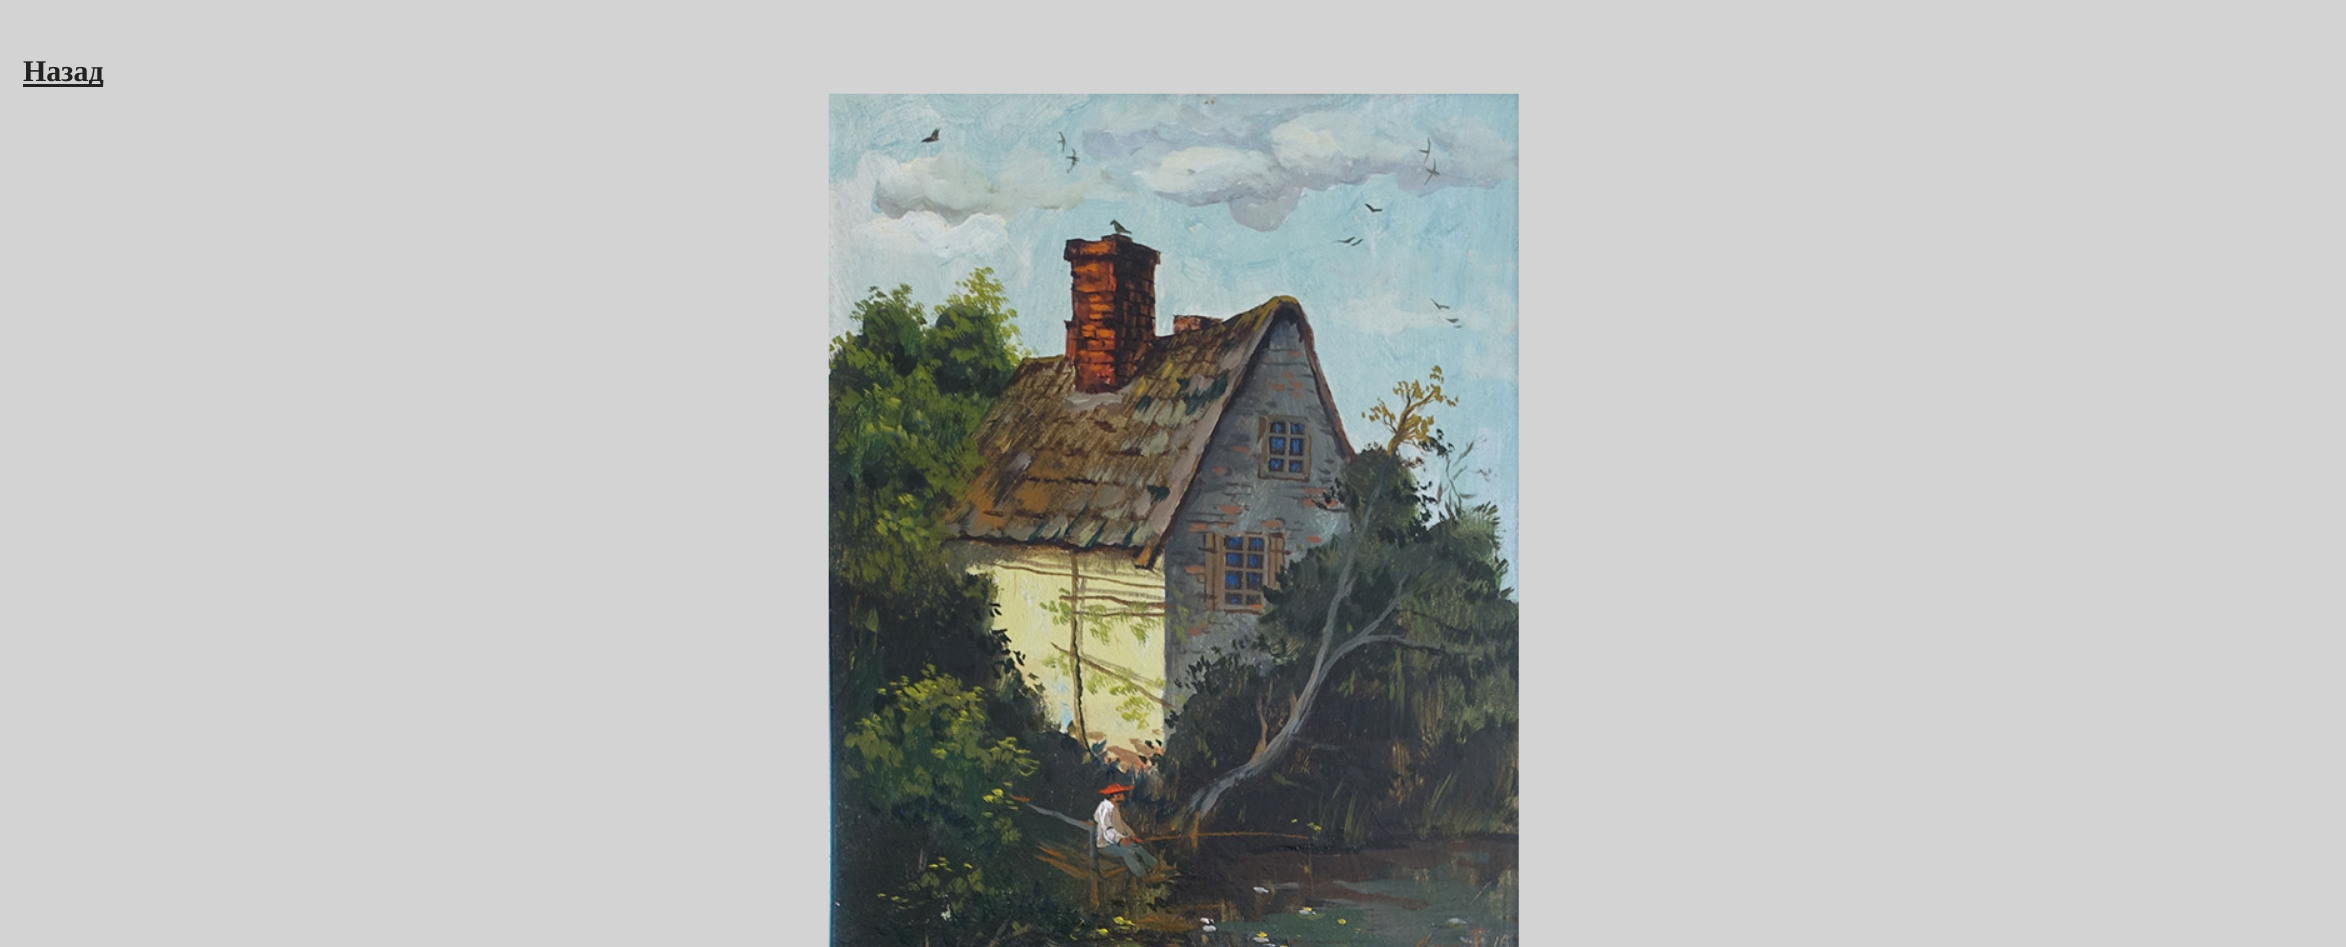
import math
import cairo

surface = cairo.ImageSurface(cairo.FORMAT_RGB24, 2346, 947)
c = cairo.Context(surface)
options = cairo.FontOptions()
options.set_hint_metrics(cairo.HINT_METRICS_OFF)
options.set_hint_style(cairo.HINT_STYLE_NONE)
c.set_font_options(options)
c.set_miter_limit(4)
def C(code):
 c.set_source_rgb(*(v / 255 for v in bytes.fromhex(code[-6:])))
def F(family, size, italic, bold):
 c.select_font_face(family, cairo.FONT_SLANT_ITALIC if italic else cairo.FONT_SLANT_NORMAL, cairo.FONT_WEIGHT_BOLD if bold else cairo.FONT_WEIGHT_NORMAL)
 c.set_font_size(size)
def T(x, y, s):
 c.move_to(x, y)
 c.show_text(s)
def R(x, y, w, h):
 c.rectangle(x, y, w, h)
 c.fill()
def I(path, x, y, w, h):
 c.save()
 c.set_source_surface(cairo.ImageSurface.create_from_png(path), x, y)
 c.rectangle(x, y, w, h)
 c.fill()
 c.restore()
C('d3d3d3')
c.paint()
C('222220')
R(23,84,80,3)
F('Liberation Serif',30,0,1)
T(23,81,'Назад')
I('1.png',828,93,691,854)
surface.write_to_png('o.png')
